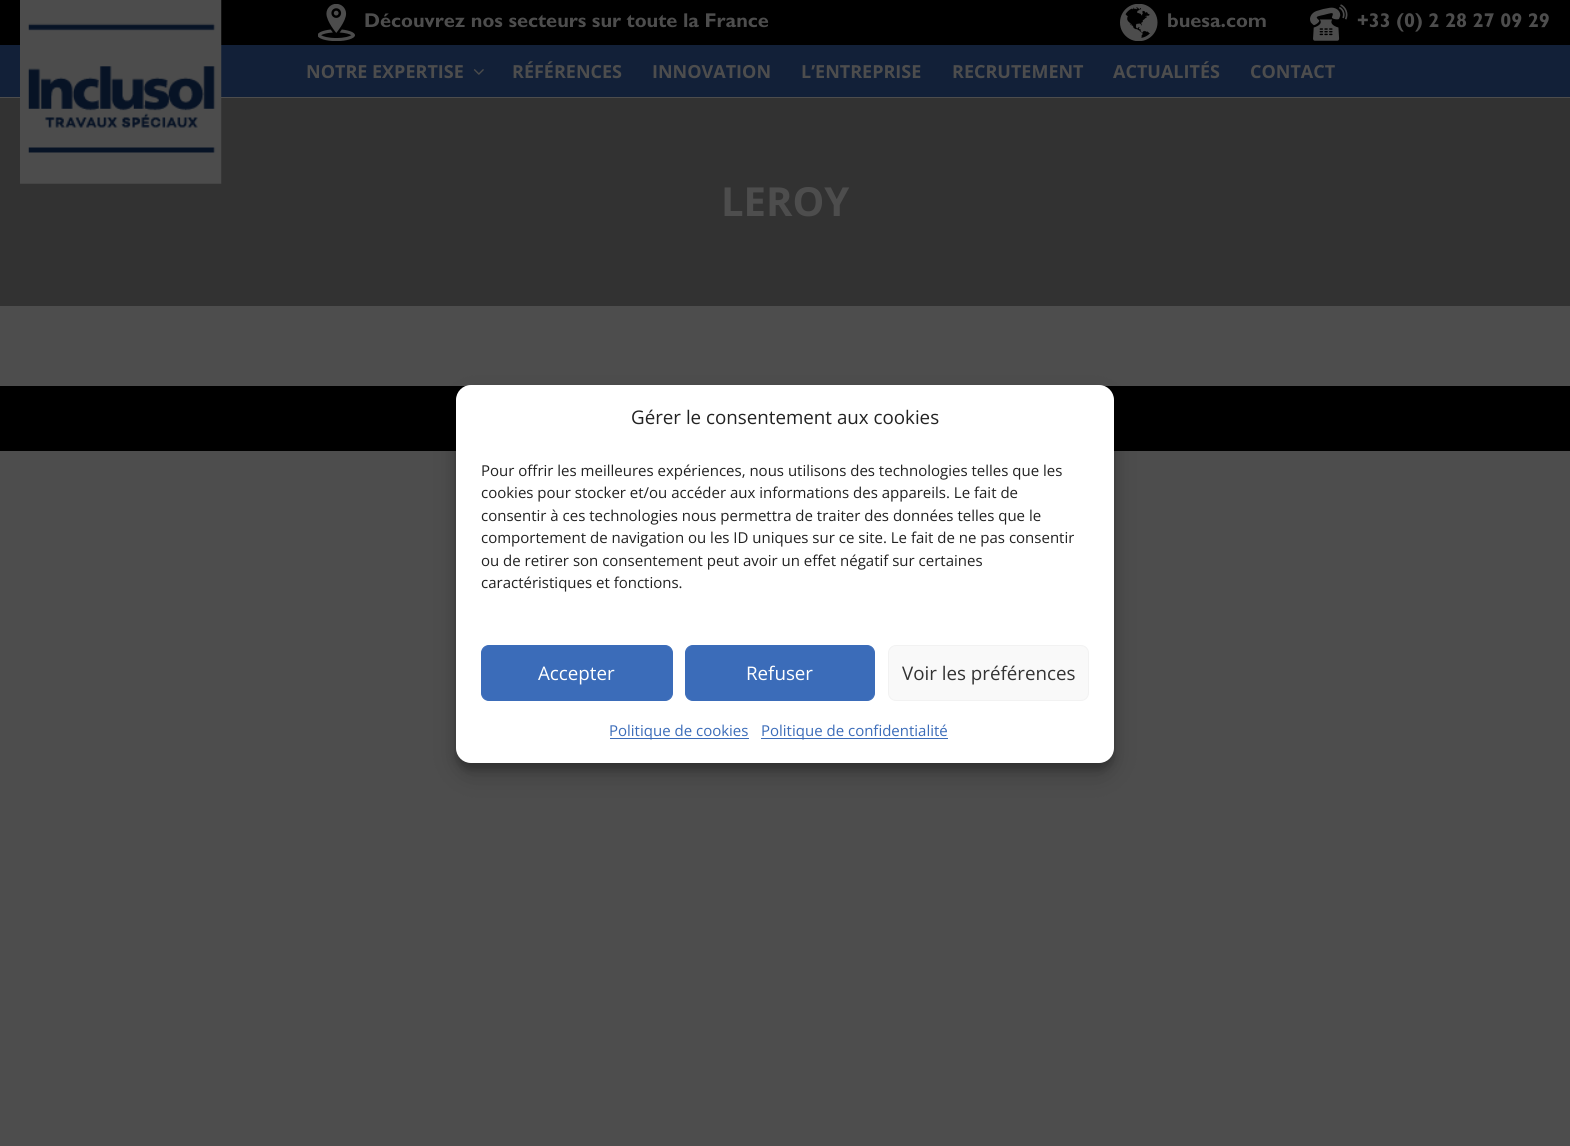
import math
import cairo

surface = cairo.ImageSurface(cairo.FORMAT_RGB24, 1570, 1146)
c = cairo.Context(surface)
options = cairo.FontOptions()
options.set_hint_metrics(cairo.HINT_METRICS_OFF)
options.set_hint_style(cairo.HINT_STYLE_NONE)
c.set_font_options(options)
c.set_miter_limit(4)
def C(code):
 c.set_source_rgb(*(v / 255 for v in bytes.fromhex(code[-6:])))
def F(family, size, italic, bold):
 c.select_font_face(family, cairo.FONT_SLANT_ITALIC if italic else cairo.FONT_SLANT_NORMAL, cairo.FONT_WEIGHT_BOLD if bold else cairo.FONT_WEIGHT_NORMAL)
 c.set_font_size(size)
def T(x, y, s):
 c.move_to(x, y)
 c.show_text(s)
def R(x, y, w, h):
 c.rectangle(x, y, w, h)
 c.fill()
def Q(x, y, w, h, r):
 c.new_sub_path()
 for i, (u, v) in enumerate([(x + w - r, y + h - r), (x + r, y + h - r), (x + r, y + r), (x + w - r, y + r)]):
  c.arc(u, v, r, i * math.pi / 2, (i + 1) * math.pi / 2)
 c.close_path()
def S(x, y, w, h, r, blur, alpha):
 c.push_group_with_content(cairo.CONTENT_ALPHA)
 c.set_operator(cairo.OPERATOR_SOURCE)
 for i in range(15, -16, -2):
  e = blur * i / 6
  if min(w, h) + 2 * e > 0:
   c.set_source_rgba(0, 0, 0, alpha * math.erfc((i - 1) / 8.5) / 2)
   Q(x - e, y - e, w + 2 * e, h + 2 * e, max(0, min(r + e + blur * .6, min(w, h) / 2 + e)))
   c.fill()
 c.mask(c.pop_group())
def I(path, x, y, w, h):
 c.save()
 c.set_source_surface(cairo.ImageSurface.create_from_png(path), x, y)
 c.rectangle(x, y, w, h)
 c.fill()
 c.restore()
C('4d4d4d')
c.paint()
C('000000')
R(0,0,1570,45)
C('122038')
R(0,45,1570,52)
C('323232')
R(0,98,1570,208)
I('1.png',20,0,202,184)
I('2.png',318,4,37,37)
F('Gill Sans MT',20,0,1)
C('4d4d4d')
T(364,27,'Découvrez nos secteurs sur toute la France')
I('3.png',1120,4,38,37)
T(1167,27,'buesa.com')
I('4.png',1310,4,38,37)
T(1357,27,'+33 (0) 2 28 27 09 29')
F('Open Sans',18,0,1)
T(306,78,'NOTRE EXPERTISE')
I('5.png',473,69,11,6)
T(512,78,'RÉFÉRENCES')
T(652,78,'INNOVATION')
T(801,78,'L’ENTREPRISE')
T(952,78,'RECRUTEMENT')
T(1113,78,'ACTUALITÉS')
T(1250,78,'CONTACT')
F('Open Sans',40,0,1)
T(721,216,'LEROY')
C('000000')
R(0,386,1570,65)
C('000000')
S(456,393,658,377,15,4,.23)
S(456,398,658,377,15,12.5,.19)
C('ffffff')
Q(456,385,658,378,15)
c.fill()
F('Open Sans',18.75,0,0)
C('222222')
T(631,424,'Gérer le consentement aux cookies')
F('Open Sans',15,0,0)
T(481,476,'Pour offrir les meilleures expériences, nous utilisons des technologies telles que les')
T(481,498,'cookies pour stocker et/ou accéder aux informations des appareils. Le fait de')
T(481,521,'consentir à ces technologies nous permettra de traiter des données telles que le')
T(481,543,'comportement de navigation ou les ID uniques sur ce site. Le fait de ne pas consentir')
T(481,566,'ou de retirer son consentement peut avoir un effet négatif sur certaines')
T(481,588,'caractéristiques et fonctions.')
C('3b6cb9')
Q(481.5,645.5,191,55,7.5)
c.fill_preserve()
c.set_line_width(1)
c.stroke()
F('Open Sans',18.75,0,0)
C('ffffff')
T(538,680,'Accepter')
C('3b6cb9')
Q(685.5,645.5,189,55,7.5)
c.fill_preserve()
c.stroke()
C('ffffff')
T(746,680,'Refuser')
C('f9f9f9')
Q(888.5,645.5,200,55,7.5)
c.fill_preserve()
C('f2f2f2')
c.stroke()
C('333333')
T(902,680,'Voir les préférences')
C('3b6cb9')
R(610,738,139,1)
F('Open Sans',15,0,0)
T(609,736,'Politique de cookies')
R(761,738,187,1)
T(761,736,'Politique de confidentialité')
surface.write_to_png('o.png')
